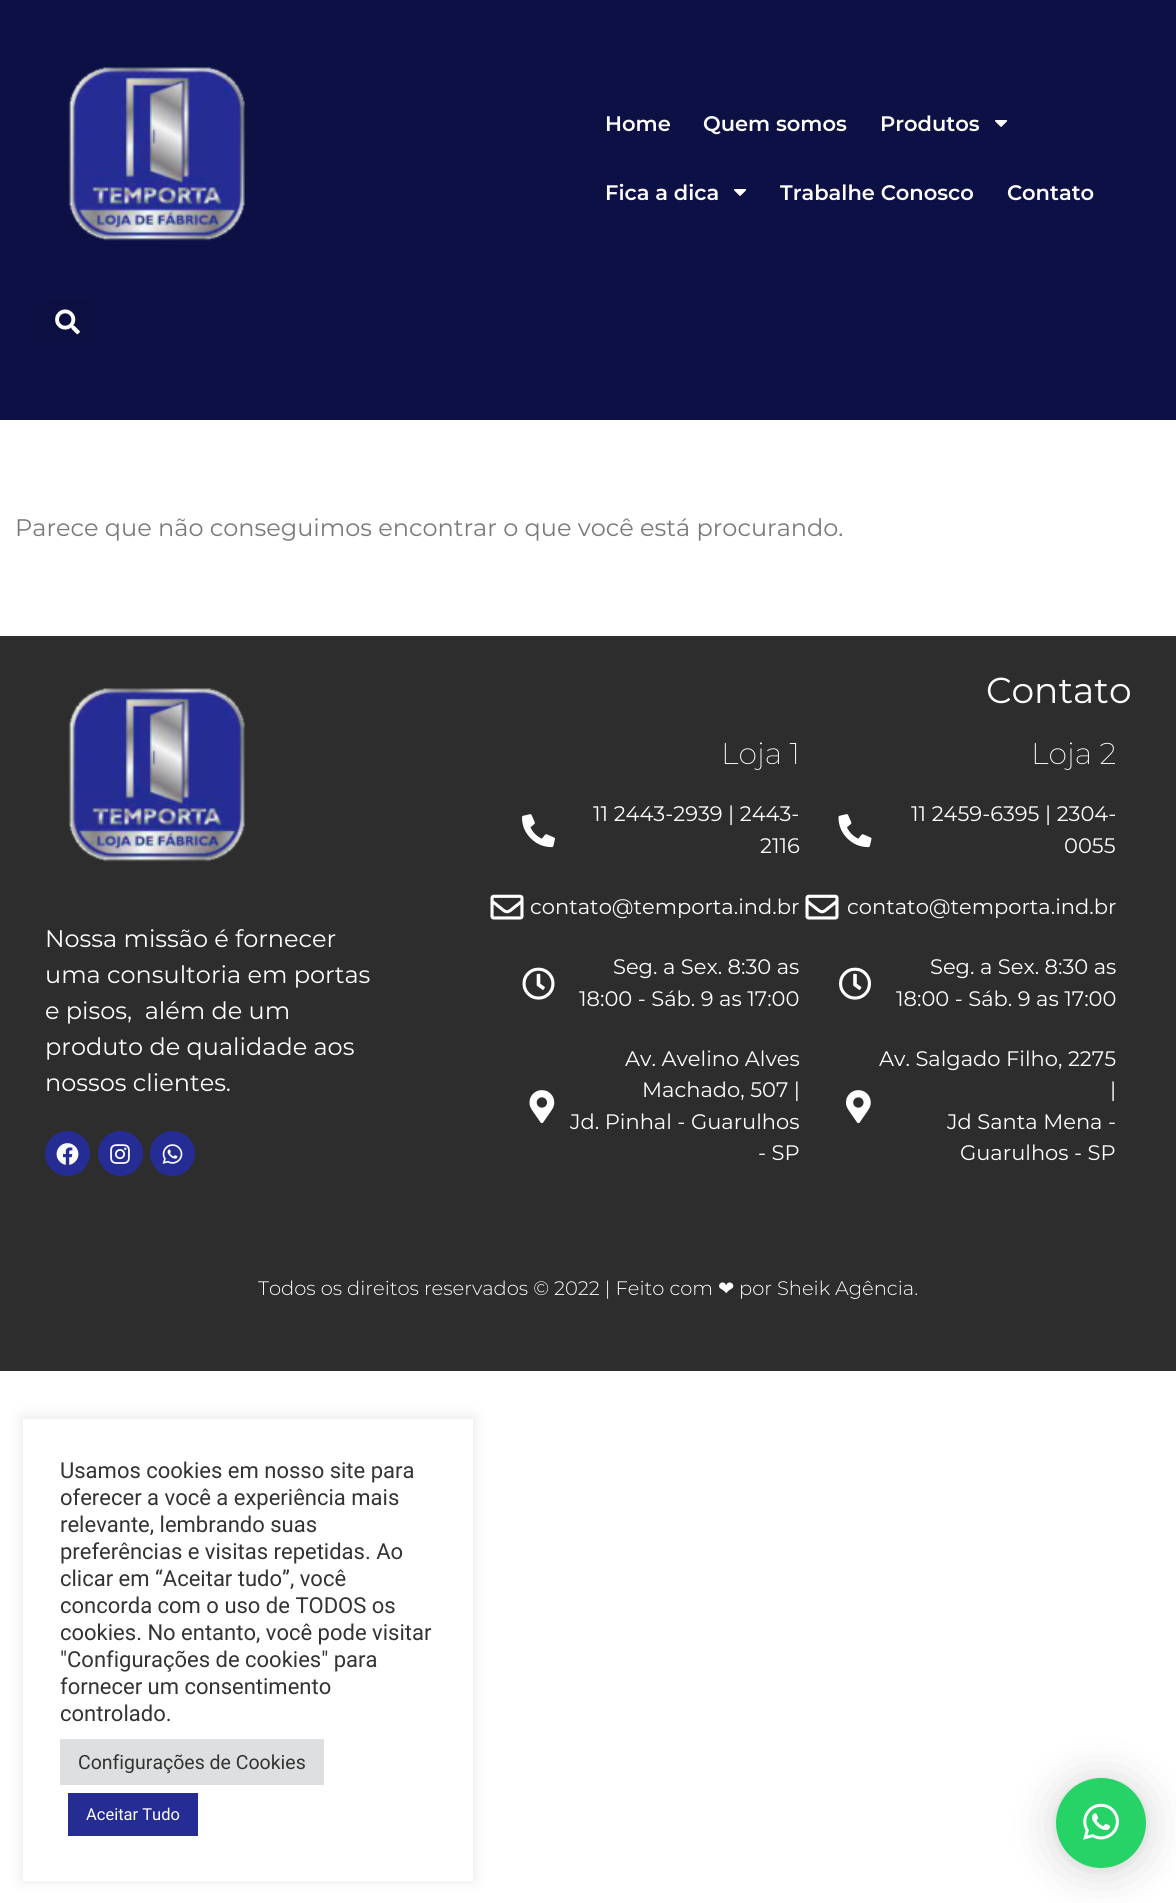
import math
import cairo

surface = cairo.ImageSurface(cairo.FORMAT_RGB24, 1176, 1903)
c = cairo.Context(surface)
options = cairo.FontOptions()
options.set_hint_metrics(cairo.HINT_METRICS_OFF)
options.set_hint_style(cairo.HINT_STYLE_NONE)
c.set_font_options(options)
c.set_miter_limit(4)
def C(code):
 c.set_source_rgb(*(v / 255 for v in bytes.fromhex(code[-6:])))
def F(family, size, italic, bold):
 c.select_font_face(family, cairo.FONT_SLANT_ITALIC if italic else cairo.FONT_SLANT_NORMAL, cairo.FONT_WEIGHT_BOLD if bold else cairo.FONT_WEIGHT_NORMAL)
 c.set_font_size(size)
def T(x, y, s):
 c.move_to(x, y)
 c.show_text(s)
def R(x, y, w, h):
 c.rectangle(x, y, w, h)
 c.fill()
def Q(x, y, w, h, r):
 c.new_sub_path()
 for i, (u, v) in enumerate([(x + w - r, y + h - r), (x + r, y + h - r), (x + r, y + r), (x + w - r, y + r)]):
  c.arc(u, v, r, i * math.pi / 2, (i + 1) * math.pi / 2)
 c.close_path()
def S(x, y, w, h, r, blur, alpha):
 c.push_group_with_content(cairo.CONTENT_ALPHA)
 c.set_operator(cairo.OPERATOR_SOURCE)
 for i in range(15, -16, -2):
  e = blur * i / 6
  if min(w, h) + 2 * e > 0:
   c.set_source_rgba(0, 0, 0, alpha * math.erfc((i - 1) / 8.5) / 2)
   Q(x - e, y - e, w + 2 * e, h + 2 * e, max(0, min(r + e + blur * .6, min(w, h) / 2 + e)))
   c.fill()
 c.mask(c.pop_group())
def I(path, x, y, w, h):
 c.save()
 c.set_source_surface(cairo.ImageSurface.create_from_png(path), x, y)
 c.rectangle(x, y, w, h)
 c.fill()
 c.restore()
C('ffffff')
c.paint()
C('0c1044')
R(0,0,1176,420)
I('1.png',68,67,177,174)
F('Montserrat SemiBold',21,0,0)
C('fdfdfd')
T(605,131,'Home')
T(703,131,'Quem somos')
T(880,131,'Produtos')
I('2.png',995,120,13,7)
T(605,200,'Fica a dica')
I('2.png',734,189,13,7)
T(780,200,'Trabalhe Conosco')
T(1007,200,'Contato')
C('0b0f41')
Q(45,300,45,45,5)
c.fill()
I('3.png',55,309,25,26)
F('Montserrat',24,0,0)
C('7a7a7a')
T(15,536,'Parece que não conseguimos encontrar o que você está procurando.')
C('2d2d2d')
R(0,636,1176,735)
I('4.png',68,688,177,174)
C('fdfdfd')
T(45,947,'Nossa missão é fornecer')
T(45,983,'uma consultoria em portas')
T(45,1019,'e pisos,  além de um')
T(45,1055,'produto de qualidade aos')
T(45,1091,'nossos clientes.')
C('252d94')
c.new_path()
c.arc(67.5,1153.5,22.5,0,2 * math.pi)
c.fill()
I('5.png',56,1143,23,22)
c.arc(120.5,1153.5,22.5,0,2 * math.pi)
c.fill()
I('6.png',110,1144,20,20)
c.arc(172.5,1153.5,22.5,0,2 * math.pi)
c.fill()
I('7.png',162,1144,21,20)
F('Montserrat',36,0,0)
C('fdfdfd')
T(986,703,'Contato')
F('Montserrat ExtraLight',30,0,0)
T(721,764,'Loja 1')
I('8.png',522,814,33,34)
F('Montserrat',21,0,0)
T(593,821,'11 2443-2939 | 2443-')
T(760,853,'2116')
I('9.png',490,894,34,26)
T(530,914,'contato@temporta.ind.br')
I('10.png',522,967,33,33)
T(613,974,'Seg. a Sex. 8:30 as')
T(579,1006,'18:00 - Sáb. 9 as 17:00')
I('11.png',529,1090,26,34)
T(625,1066,'Av. Avelino Alves')
T(642,1097,'Machado, 507 |')
T(570,1129,'Jd. Pinhal - Guarulhos')
T(758,1160,'- SP')
F('Montserrat ExtraLight',30,0,0)
T(1031,764,'Loja 2')
I('12.png',838,814,34,34)
F('Montserrat',21,0,0)
T(911,821,'11 2459-6395 | 2304-')
T(1064,853,'0055')
I('9.png',805,894,34,26)
T(847,914,'contato@temporta.ind.br')
I('13.png',839,967,32,33)
T(930,974,'Seg. a Sex. 8:30 as')
T(896,1006,'18:00 - Sáb. 9 as 17:00')
I('14.png',846,1090,25,34)
T(879,1066,'Av. Salgado Filho, 2275')
T(1110,1097,'|')
T(947,1129,'Jd Santa Mena -')
T(960,1160,'Guarulhos - SP')
F('Montserrat Light',19.5,0,0)
T(258,1295,'Todos os direitos reservados © 2022 | Feito com')
F('DejaVu Sans',19.5,0,0)
T(718,1295,'❤')
F('Montserrat Light',19.5,0,0)
T(739,1295,'por Sheik Agência.')
C('acabab')
S(23,1418,450,462,0,7.5,.3)
C('ffffff')
R(23,1419,450,462)
F('Roboto',22,0,0)
C('333333')
T(60,1478,'Usamos cookies em nosso site para')
T(60,1505,'oferecer a você a experiência mais')
T(60,1532,'relevante, lembrando suas')
T(60,1559,'preferências e visitas repetidas. Ao')
T(60,1586,'clicar em “Aceitar tudo”, você')
T(60,1613,'concorda com o uso de TODOS os')
T(60,1640,'cookies. No entanto, você pode visitar')
T(60,1667,'"Configurações de cookies" para')
T(60,1694,'fornecer um consentimento')
T(60,1721,'controlado.')
C('dedfe0')
R(60,1739,264,46)
F('Roboto',19.5,0,0)
C('333333')
T(78,1769,'Configurações de Cookies')
C('252c94')
R(68,1793,130,43)
F('Roboto',16.5,0,0)
C('fdfdfd')
T(86,1820,'Aceitar Tudo')
C('000000')
S(1056,1781,90,90,45,24,.16)
S(1056,1779,90,90,45,4.5,.06)
C('25d366')
c.arc(1101,1823,45,0,2 * math.pi)
c.fill()
I('15.png',1083,1803,36,37)
surface.write_to_png('o.png')
